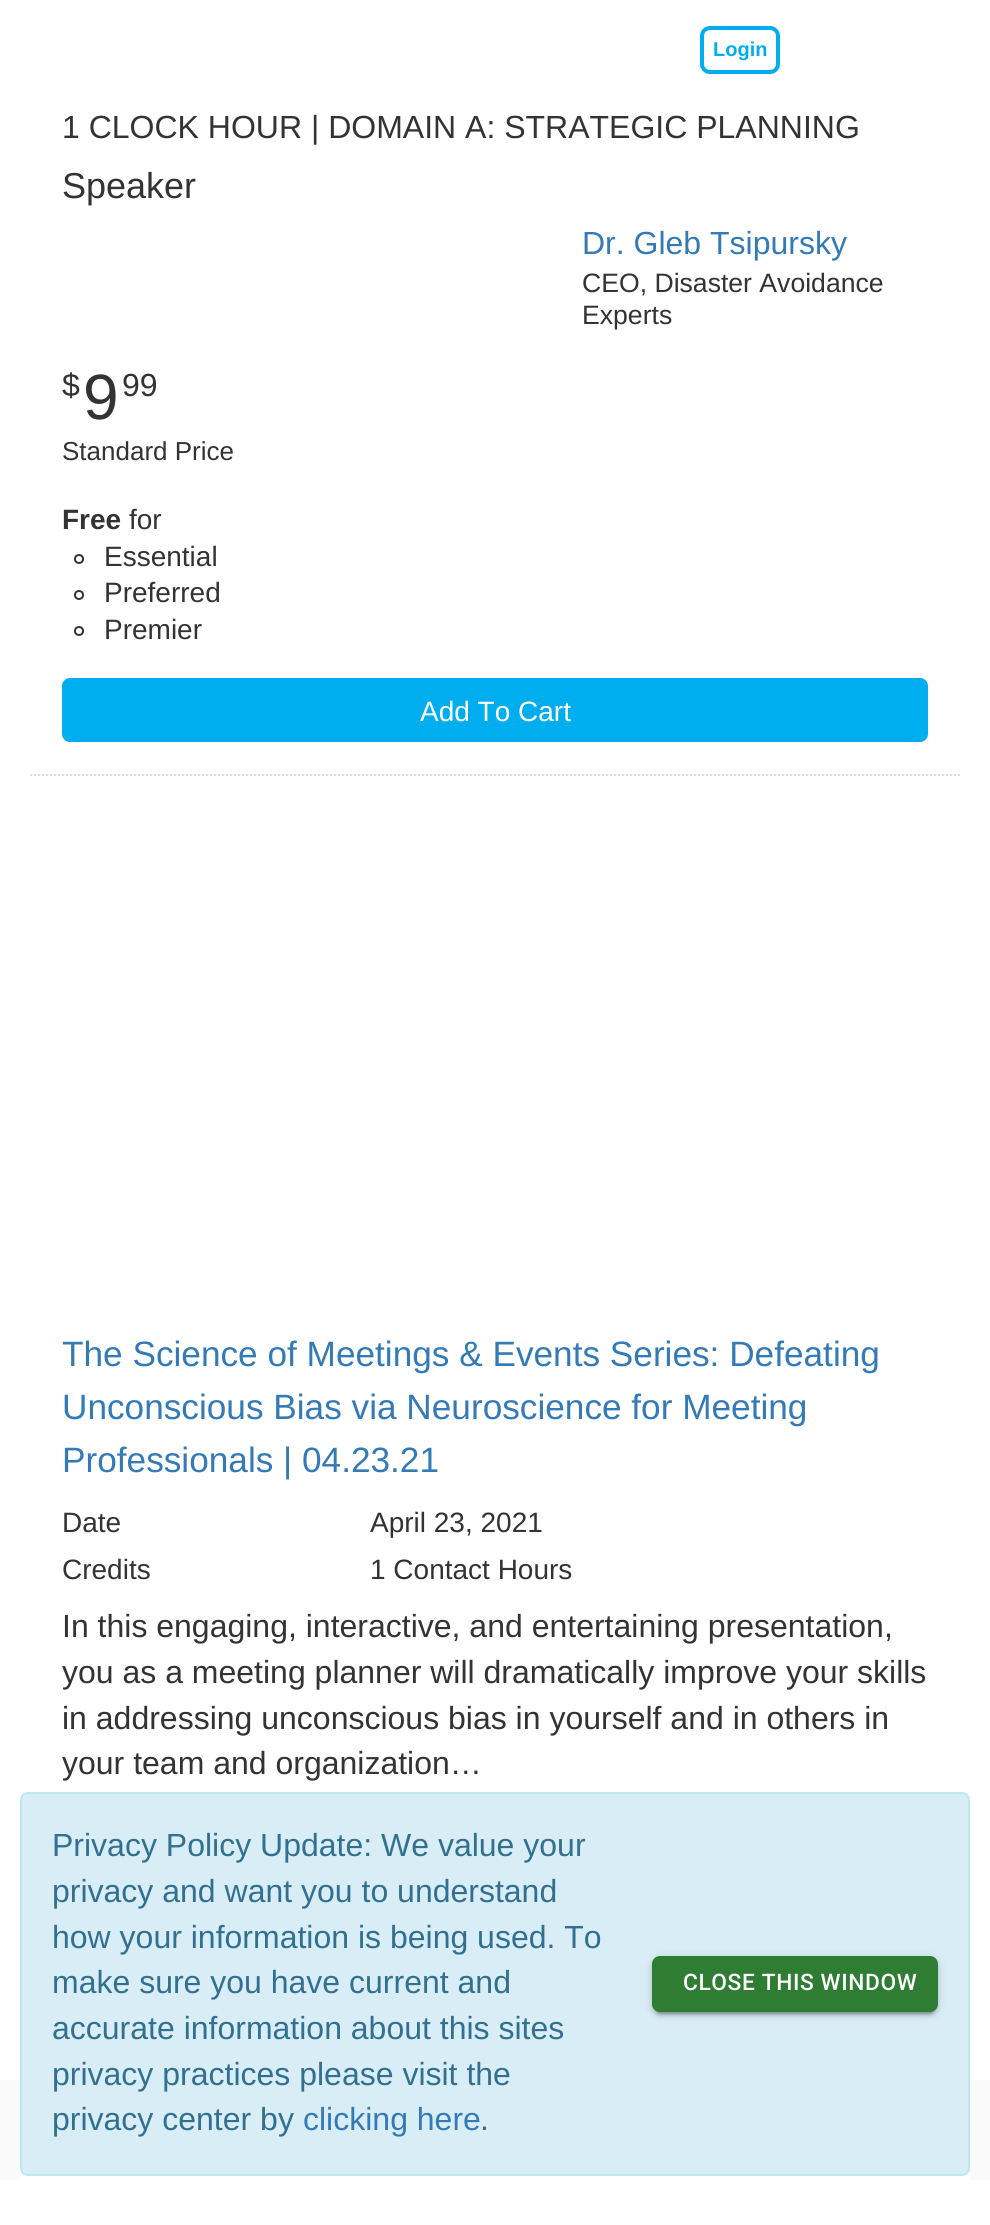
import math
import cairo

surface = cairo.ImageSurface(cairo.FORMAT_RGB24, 990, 2225)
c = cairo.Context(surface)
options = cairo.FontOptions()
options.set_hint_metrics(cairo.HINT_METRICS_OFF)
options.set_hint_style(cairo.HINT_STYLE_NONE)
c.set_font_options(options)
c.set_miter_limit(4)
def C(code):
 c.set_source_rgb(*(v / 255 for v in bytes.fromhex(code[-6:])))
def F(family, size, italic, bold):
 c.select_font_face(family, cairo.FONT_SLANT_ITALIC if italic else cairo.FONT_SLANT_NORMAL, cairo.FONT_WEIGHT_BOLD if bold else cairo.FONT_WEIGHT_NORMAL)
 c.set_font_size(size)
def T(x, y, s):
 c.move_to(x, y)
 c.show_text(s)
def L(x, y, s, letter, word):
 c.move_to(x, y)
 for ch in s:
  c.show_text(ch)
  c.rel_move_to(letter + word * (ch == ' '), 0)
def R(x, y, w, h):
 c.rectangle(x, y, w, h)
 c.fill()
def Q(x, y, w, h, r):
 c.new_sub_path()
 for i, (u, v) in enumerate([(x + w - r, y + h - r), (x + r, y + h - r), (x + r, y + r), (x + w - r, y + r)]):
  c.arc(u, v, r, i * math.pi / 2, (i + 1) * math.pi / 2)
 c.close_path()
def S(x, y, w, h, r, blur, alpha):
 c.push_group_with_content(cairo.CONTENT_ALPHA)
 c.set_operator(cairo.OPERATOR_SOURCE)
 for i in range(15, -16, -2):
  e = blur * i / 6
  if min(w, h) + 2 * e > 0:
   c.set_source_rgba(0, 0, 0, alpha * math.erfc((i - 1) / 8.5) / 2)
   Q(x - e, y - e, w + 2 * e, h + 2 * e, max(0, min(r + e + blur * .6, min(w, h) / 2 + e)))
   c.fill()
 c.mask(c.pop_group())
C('ffffff')
c.paint()
Q(702,28,76,44,8)
C('00aeef')
c.set_line_width(4)
c.stroke()
F('Liberation Sans',20,0,1)
T(713,56,'Login')
c.new_path()
c.move_to(30,775)
c.line_to(960,775)
C('dddddd')
c.set_line_width(2)
c.set_dash([2,2])
c.stroke()
F('Liberation Sans',32,0,0)
C('333333')
T(62,138,'1 CLOCK HOUR | DOMAIN A: STRATEGIC PLANNING')
F('Liberation Sans',36,0,0)
T(62,198,'Speaker')
F('Liberation Sans',32,0,0)
C('337ab7')
T(582,254,'Dr. Gleb Tsipursky')
F('Liberation Sans',26.6,0,0)
C('333333')
T(582,292,'CEO, Disaster Avoidance')
T(582,324,'Experts')
F('Liberation Sans',32,0,0)
T(62,396,'$')
F('Liberation Sans',64,0,0)
T(83,419,'9')
F('Liberation Sans',32,0,0)
T(122,396,'99')
F('Liberation Sans',26,0,0)
T(62,460,'Standard Price')
F('Liberation Sans',28,0,1)
T(62,529,'Free')
F('Liberation Sans',28,0,0)
T(129,529,'for')
c.new_path()
c.arc(79,559,4,0,2 * math.pi)
c.set_dash([])
c.stroke()
T(104,566,'Essential')
c.new_path()
c.arc(79,595,4,0,2 * math.pi)
c.stroke()
T(104,602,'Preferred')
c.new_path()
c.arc(79,631,4,0,2 * math.pi)
c.stroke()
T(104,639,'Premier')
C('00aeef')
Q(62,678,866,64,8)
c.fill()
C('ffffff')
T(420,721,'Add To Cart')
F('Liberation Sans',35.2,0,0)
C('337ab7')
T(62,1366,'The Science of Meetings & Events Series: Defeating')
T(62,1419,'Unconscious Bias via Neuroscience for Meeting')
T(62,1472,'Professionals | 04.23.21')
F('Liberation Sans',28,0,0)
C('333333')
T(62,1532,'Date')
T(370,1532,'April 23, 2021')
T(62,1579,'Credits')
T(370,1579,'1 Contact Hours')
F('Liberation Sans',32,0,0)
T(62,1637,'In this engaging, interactive, and entertaining presentation,')
T(62,1683,'you as a meeting planner will dramatically improve your skills')
T(62,1729,'in addressing unconscious bias in yourself and in others in')
T(62,1774,'your team and organization…')
C('fafafa')
R(0,2080,990,100)
C('ffffff')
R(20,2080,950,100)
C('d9edf7')
Q(21,1793,948,382,7)
c.fill_preserve()
C('bce8f1')
c.stroke()
C('31708f')
T(52,1856,'Privacy Policy Update: We value your')
T(52,1902,'privacy and want you to understand')
T(52,1948,'how your information is being used. To')
T(52,1993,'make sure you have current and')
T(52,2039,'accurate information about this sites')
T(52,2085,'privacy practices please visit the')
T(52,2130,'privacy center by')
C('337ab7')
T(303,2130,'clicking here')
C('31708f')
T(480,2130,'.')
C('000000')
S(652,1958,286,56,8,5,.12)
S(652,1960,286,56,8,2,.14)
S(656,1966,278,48,4,1,.2)
C('2e7d32')
Q(652,1956,286,56,8)
c.fill()
F('Roboto Medium',22.75,0,0)
C('ffffff')
L(683,1990,'CLOSE THIS WINDOW',.6,0)
surface.write_to_png('o.png')
